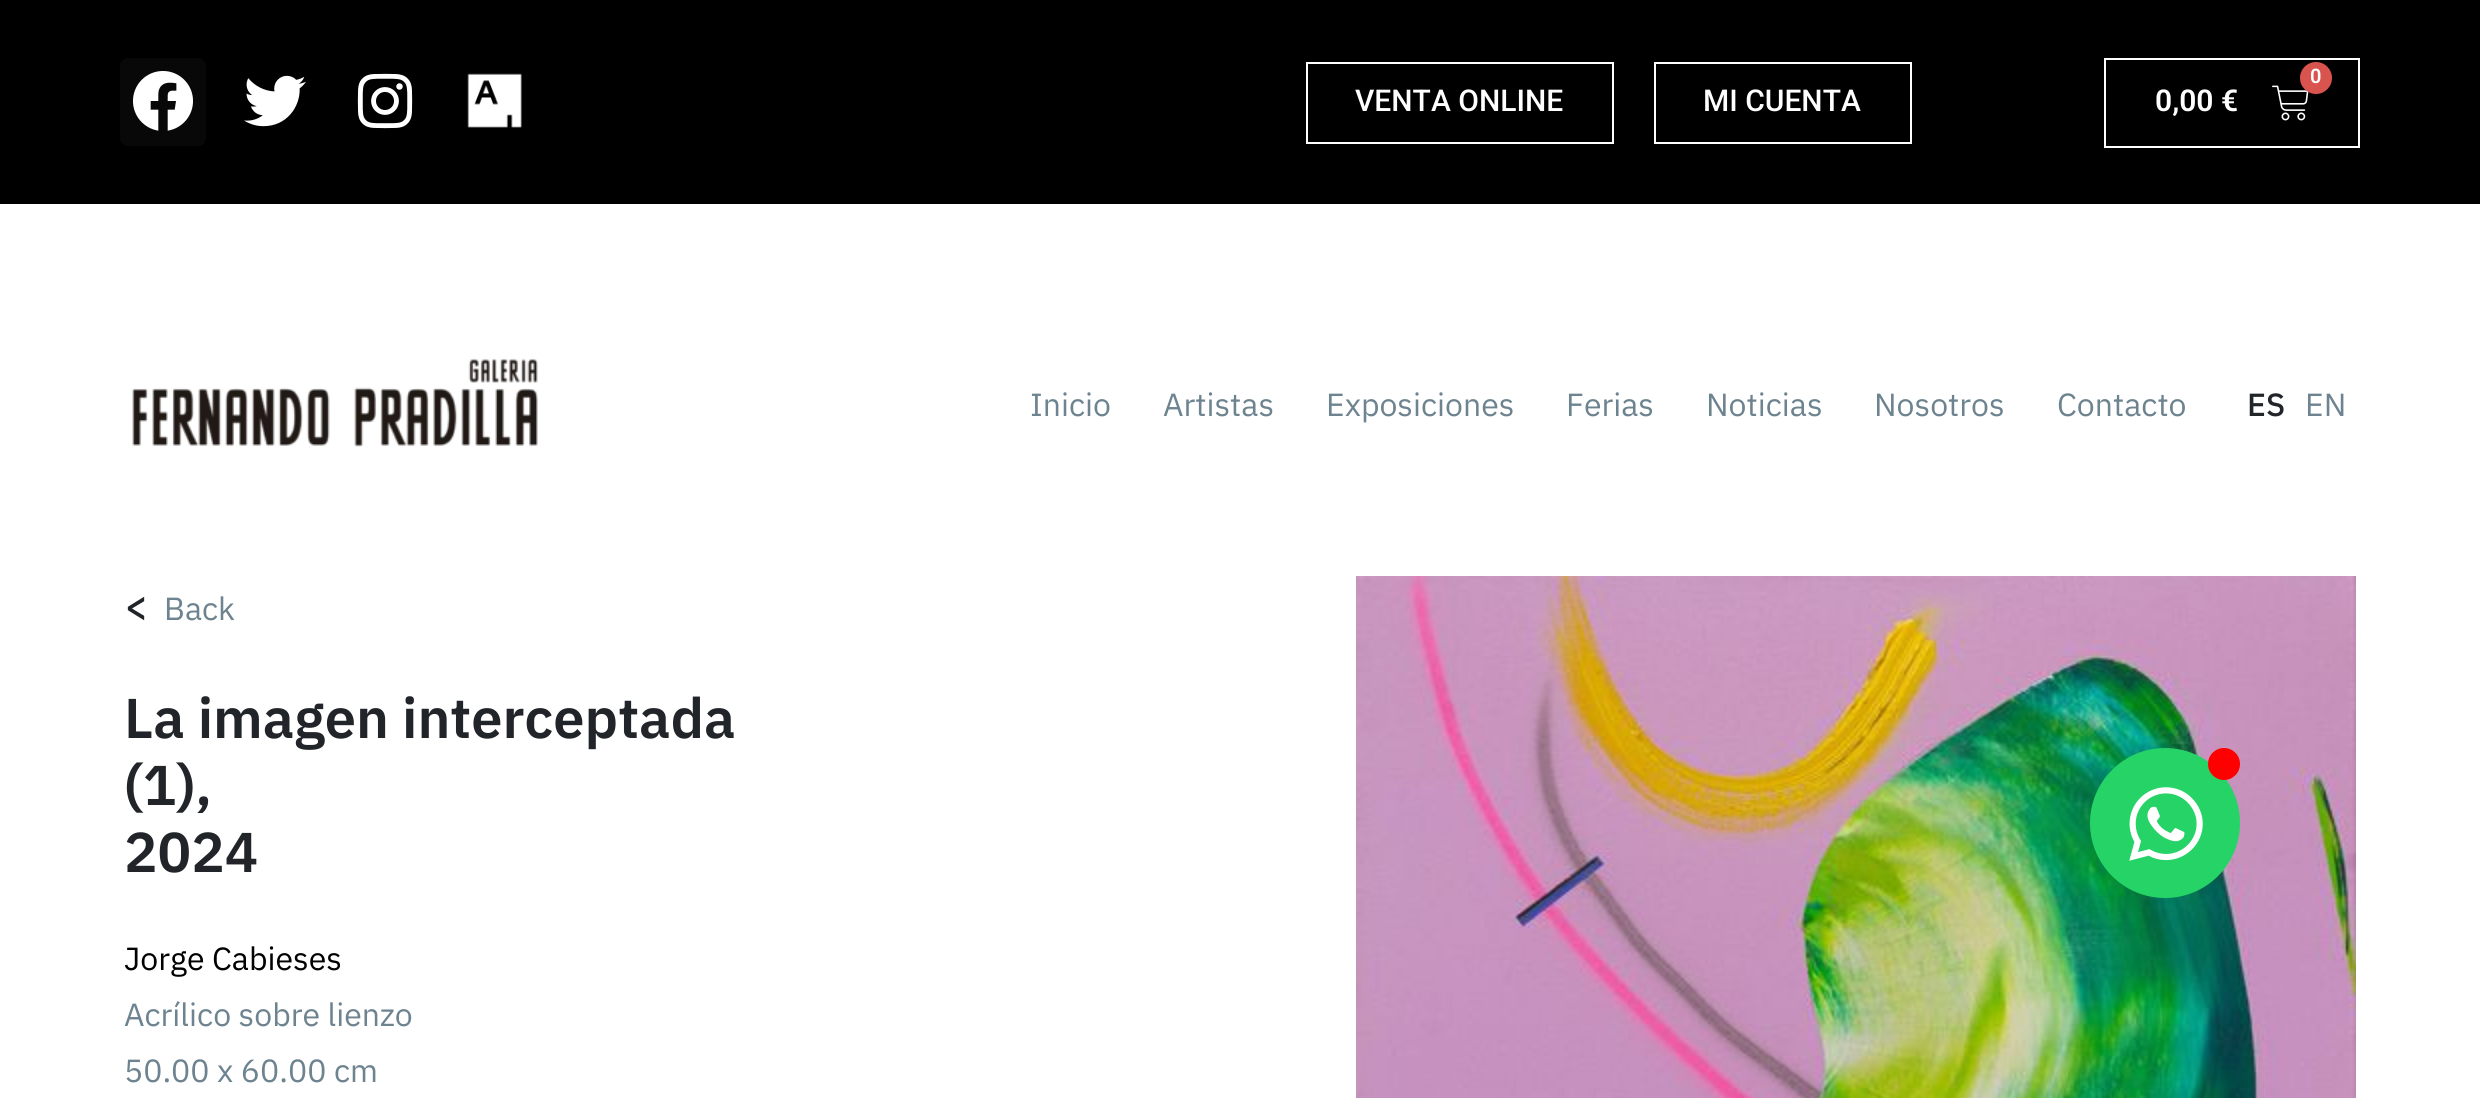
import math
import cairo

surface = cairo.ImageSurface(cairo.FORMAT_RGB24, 2480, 1098)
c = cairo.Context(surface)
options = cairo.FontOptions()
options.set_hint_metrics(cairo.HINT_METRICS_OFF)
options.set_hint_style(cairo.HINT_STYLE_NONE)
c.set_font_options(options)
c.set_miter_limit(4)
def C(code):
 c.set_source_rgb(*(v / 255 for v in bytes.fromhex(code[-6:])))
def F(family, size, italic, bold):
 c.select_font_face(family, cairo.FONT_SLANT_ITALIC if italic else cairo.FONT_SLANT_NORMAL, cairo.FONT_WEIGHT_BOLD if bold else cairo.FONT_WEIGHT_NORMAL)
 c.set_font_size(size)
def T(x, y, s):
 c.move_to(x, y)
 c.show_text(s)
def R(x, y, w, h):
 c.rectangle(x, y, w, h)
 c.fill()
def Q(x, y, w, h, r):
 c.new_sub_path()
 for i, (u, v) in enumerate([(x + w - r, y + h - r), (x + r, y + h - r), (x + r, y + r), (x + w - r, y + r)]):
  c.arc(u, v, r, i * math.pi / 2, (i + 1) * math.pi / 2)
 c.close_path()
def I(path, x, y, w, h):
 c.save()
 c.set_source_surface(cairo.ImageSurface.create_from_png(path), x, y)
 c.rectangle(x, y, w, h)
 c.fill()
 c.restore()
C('ffffff')
c.paint()
C('000000')
R(0,0,2480,204)
C('080808')
Q(120,58,86,88,8)
c.fill()
I('1.png',133,71,60,60)
I('2.png',244,75,62,52)
I('3.png',357,73,56,56)
I('4.png',467,73,55,55)
c.rectangle(1307,63,306,80)
C('ffffff')
c.stroke()
F('Roboto Medium',30,0,0)
T(1355,111,'VENTA ONLINE')
c.rectangle(1655,63,256,80)
c.stroke()
T(1703,111,'MI CUENTA')
c.rectangle(2105,59,254,88)
c.stroke()
I('5.png',2272,85,37,36)
C('d9534f')
c.arc(2316,78,16,0,2 * math.pi)
c.fill()
F('Roboto SemiBold',20,0,0)
C('ffffff')
T(2310,83,'0')
F('Roboto SemiBold',30,0,0)
T(2155,111,'0,00 €')
I('6.png',132,358,406,89)
F('IBM Plex Sans',32,0,0)
C('6d838f')
T(1030,416,'Inicio')
T(1163,416,'Artistas')
T(1326,416,'Exposiciones')
T(1566,416,'Ferias')
T(1706,416,'Noticias')
T(1874,416,'Nosotros')
T(2057,416,'Contacto')
F('IBM Plex Sans Medium',32,0,0)
C('212529')
T(2247,416,'ES')
F('IBM Plex Sans',32,0,0)
C('6d838f')
T(2305,416,'EN')
F('IBM Plex Sans Medium',40,0,0)
C('212529')
T(124,620,'<')
F('IBM Plex Sans',32,0,0)
C('6d838f')
T(164,620,'Back')
F('IBM Plex Sans SemiBold',56,0,0)
C('212529')
T(124,738,'La imagen interceptada')
T(124,805,'(1),')
T(124,872,'2024')
F('IBM Plex Sans',32,0,0)
C('000000')
T(124,970,'Jorge Cabieses')
C('6d838f')
T(124,1026,'Acrílico sobre lienzo')
T(124,1082,'50.00 x 60.00 cm')
I('7.png',1356,576,1000,522)
C('25d366')
c.arc(2165,823,75,0,2 * math.pi)
c.fill()
C('ff0000')
c.arc(2224,764,16,0,2 * math.pi)
c.fill()
I('8.png',2129,787,74,74)
surface.write_to_png('o.png')
